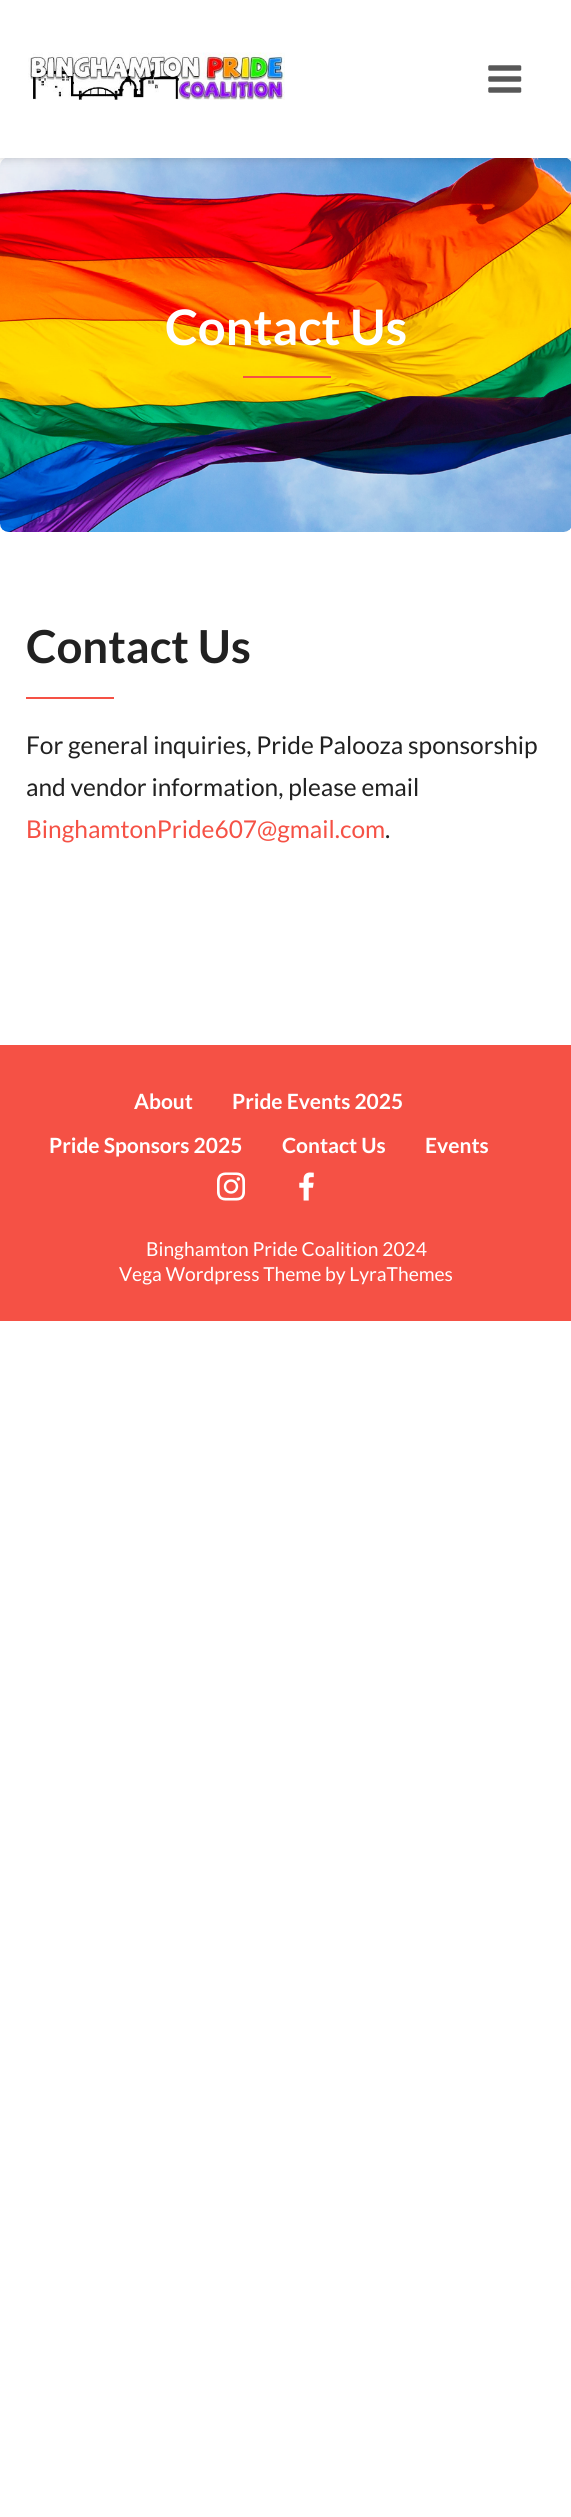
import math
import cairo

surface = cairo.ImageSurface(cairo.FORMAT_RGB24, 571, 2517)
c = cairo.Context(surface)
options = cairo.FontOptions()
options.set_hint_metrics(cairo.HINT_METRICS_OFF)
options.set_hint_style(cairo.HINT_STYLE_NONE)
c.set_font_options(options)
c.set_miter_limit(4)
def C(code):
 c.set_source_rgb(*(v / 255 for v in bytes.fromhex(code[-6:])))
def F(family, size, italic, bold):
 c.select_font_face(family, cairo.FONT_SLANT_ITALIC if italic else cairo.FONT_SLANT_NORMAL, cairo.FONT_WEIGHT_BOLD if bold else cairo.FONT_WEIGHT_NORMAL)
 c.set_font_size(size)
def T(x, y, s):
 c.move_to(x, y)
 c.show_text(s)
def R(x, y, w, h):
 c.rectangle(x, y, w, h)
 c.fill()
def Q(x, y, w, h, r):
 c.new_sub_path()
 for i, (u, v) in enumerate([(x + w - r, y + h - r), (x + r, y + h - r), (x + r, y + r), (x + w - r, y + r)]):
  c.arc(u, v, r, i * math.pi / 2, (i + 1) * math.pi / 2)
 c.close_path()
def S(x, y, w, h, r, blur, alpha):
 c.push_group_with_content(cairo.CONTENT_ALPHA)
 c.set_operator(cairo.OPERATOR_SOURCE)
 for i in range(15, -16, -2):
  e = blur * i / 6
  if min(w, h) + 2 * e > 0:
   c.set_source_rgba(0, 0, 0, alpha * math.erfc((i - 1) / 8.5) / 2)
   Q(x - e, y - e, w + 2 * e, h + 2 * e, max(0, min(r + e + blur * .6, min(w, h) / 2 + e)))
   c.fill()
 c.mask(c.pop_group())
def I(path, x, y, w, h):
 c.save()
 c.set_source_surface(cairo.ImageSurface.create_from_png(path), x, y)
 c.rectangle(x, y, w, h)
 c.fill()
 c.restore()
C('ffffff')
c.paint()
I('3.png',0,158,571,374)
C('000000')
S(0,0,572,158,0,4.5,.2)
C('ffffff')
R(0,0,571,158)
I('1.png',28,52,257,48)
I('2.png',488,65,34,28)
F('Lato',49,0,1)
T(165,345,'Contact Us')
C('f55145')
R(243,376,88,2)
F('Lato',45.5,0,1)
C('212121')
T(26,663,'Contact Us')
C('f55145')
R(26,697,88,2)
F('Lato',24.5,0,0)
C('212121')
T(26,754,'For general inquiries, Pride Palooza sponsorship')
T(26,796,'and vendor information, please email')
C('f55145')
T(26,838,'BinghamtonPride607@gmail.com')
C('212121')
T(385,838,'.')
C('f55145')
R(0,1045,571,276)
F('Lato',21,0,1)
C('ffffff')
T(134,1109,'About')
T(232,1109,'Pride Events 2025')
T(49,1153,'Pride Sponsors 2025')
T(282,1153,'Contact Us')
T(425,1153,'Events')
I('4.png',217,1172,28,29)
I('5.png',299,1172,15,29)
F('Lato',19.25,0,0)
T(146,1256,'Binghamton Pride Coalition 2024')
T(119,1281,'Vega Wordpress Theme by LyraThemes')
surface.write_to_png('o.png')
